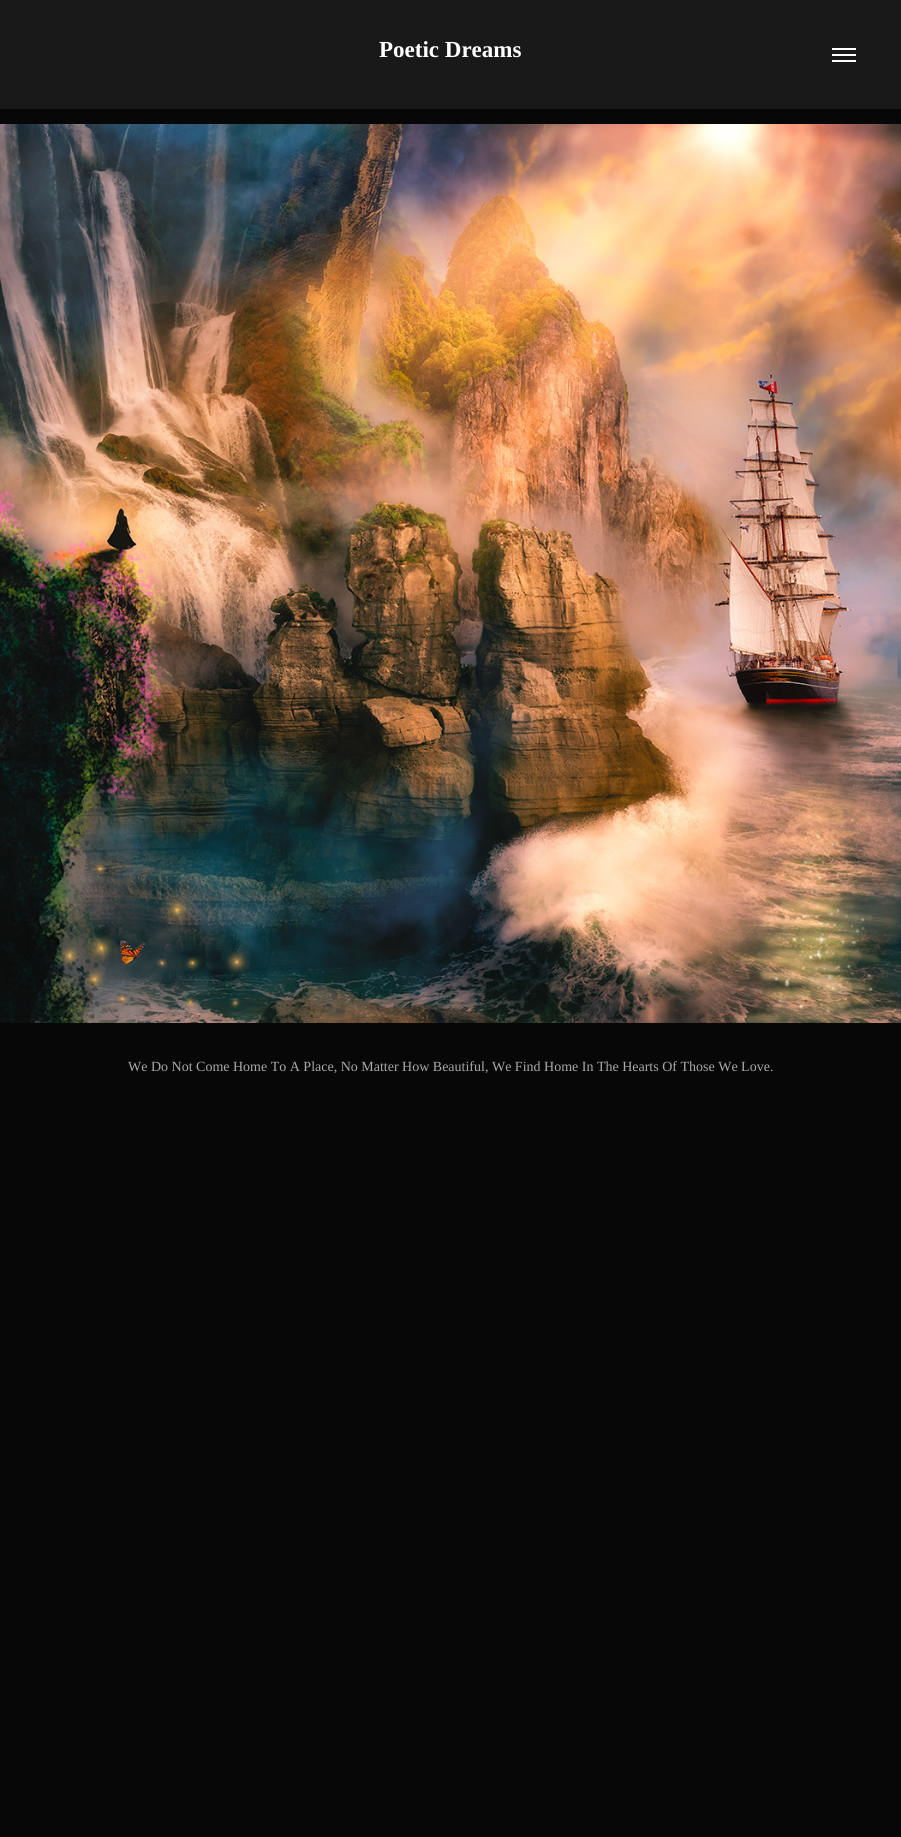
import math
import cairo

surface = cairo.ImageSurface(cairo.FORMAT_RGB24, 901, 1837)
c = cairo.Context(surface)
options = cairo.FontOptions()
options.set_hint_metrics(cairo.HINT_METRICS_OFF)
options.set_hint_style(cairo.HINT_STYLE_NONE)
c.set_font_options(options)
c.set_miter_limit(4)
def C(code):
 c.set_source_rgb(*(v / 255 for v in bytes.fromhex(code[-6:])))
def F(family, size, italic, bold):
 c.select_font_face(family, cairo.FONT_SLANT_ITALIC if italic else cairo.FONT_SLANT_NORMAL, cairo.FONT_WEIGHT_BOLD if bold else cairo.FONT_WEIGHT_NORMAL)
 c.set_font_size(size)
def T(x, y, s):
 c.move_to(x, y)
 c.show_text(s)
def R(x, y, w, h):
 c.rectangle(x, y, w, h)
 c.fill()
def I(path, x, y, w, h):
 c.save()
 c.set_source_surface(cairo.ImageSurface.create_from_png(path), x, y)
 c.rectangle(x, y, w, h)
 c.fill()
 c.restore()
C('070707')
c.paint()
C('191919')
R(0,0,901,109)
F('Liberation Serif',23,0,1)
C('ffffff')
T(379,57,'Poetic Dreams')
R(832,48,24,2)
R(832,54,24,2)
R(832,60,24,2)
I('1.png',0,124,901,899)
F('Liberation Serif',14,0,0)
C('a9a9a9')
T(128,1071,'We Do Not Come Home To A Place, No Matter How Beautiful, We Find Home In The Hearts Of Those We Love.')
surface.write_to_png('o.png')
